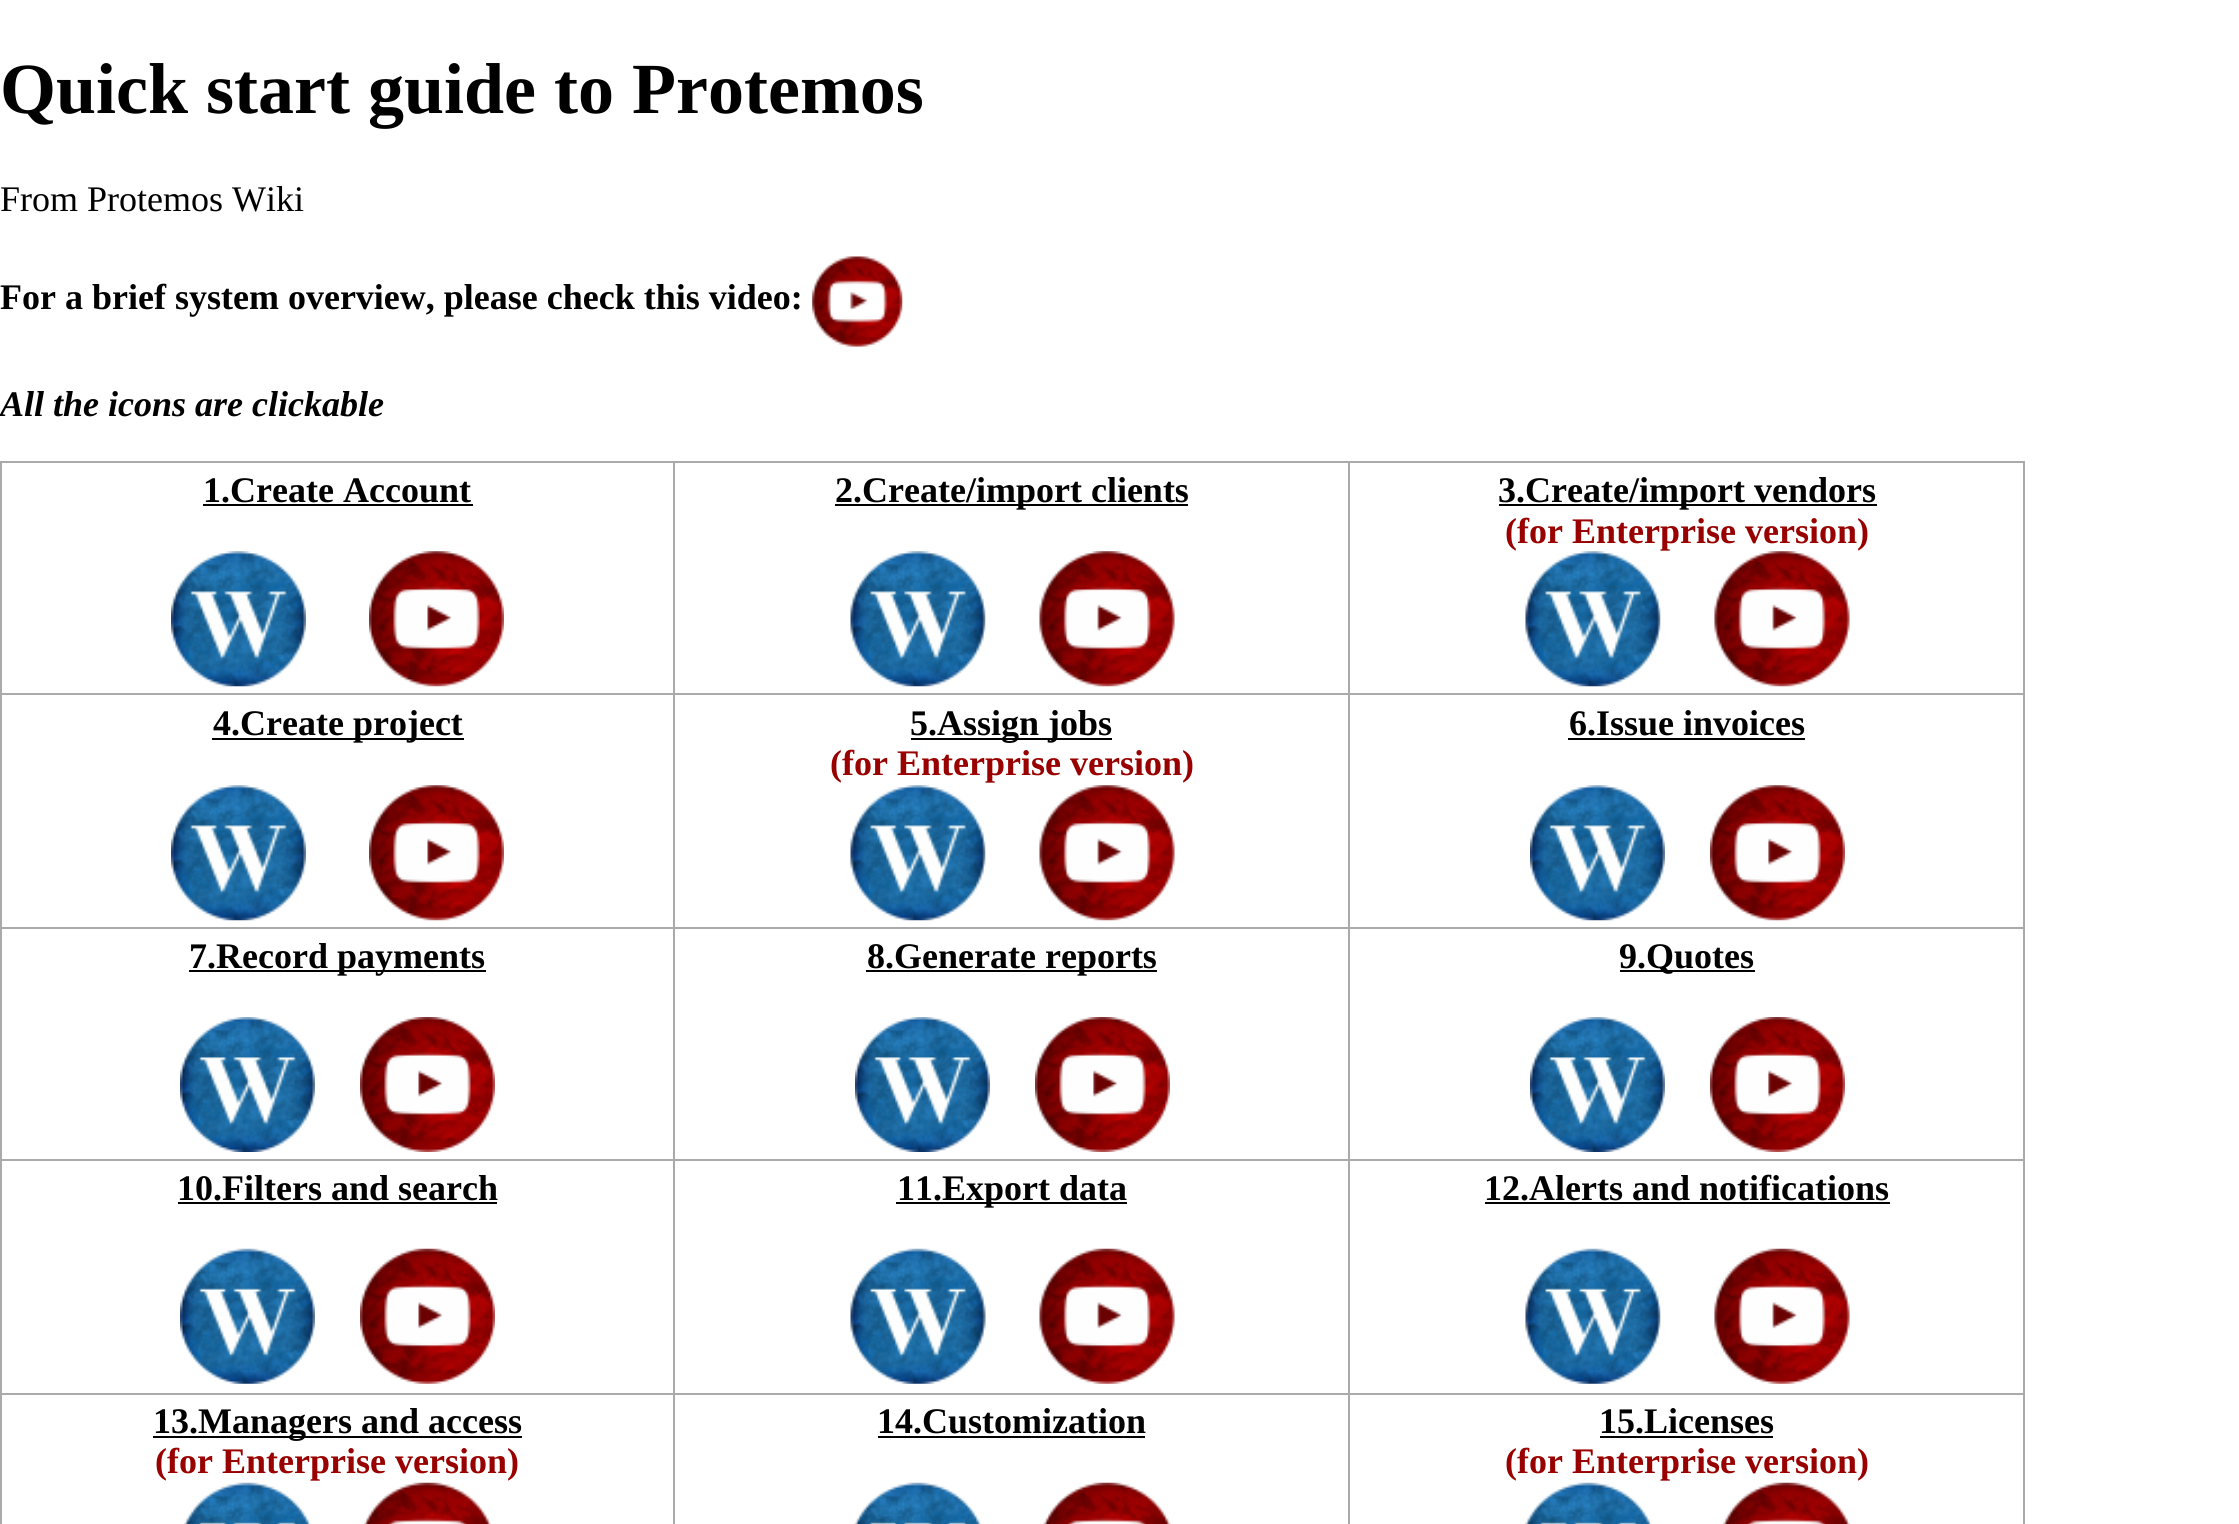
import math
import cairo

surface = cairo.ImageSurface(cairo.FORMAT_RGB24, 2239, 1524)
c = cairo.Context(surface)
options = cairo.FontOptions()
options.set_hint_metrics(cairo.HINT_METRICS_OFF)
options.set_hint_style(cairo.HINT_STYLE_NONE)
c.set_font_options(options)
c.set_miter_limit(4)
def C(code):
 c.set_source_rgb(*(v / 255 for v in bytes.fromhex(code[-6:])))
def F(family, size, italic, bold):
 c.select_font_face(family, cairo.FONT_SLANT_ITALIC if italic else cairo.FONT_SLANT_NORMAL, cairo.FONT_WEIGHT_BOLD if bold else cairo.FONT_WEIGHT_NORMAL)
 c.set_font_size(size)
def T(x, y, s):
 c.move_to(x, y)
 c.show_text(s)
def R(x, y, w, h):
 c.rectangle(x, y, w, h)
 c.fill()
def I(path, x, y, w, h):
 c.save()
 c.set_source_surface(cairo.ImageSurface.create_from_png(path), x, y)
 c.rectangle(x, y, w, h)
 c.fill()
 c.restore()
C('ffffff')
c.paint()
F('Liberation Serif',72,0,1)
C('000000')
T(0,113,'Quick start guide to Protemos')
F('Liberation Serif',36,0,0)
T(0,211,'From Protemos Wiki')
F('Liberation Serif',36,0,1)
T(0,309,'For a brief system overview, please check this video:')
I('1.png',812,256,91,91)
F('Liberation Serif',36,1,1)
T(0,416,'All the icons are clickable')
C('aaaaaa')
R(0,461,2025,2)
R(2023,461,2,1063)
R(0,461,2,1063)
F('Liberation Serif',36,0,1)
C('000000')
T(203,502,'1.Create Account')
R(203,504,270,2)
I('2.png',171,551,135,136)
I('3.png',369,551,135,136)
C('aaaaaa')
R(1348,693,677,2)
R(1348,927,677,2)
R(1348,1159,677,2)
R(1348,1393,677,2)
R(1348,1393,2,131)
R(673,1393,677,2)
R(1348,1159,2,236)
R(673,1159,677,2)
R(1348,927,2,234)
R(673,927,677,2)
R(1348,693,2,236)
R(673,693,677,2)
R(673,1393,2,131)
R(0,1393,675,2)
R(673,1159,2,236)
R(0,1159,675,2)
R(673,927,2,234)
R(0,927,675,2)
R(673,693,2,236)
R(0,693,675,2)
R(673,461,2,234)
C('000000')
R(835,504,353,2)
T(835,502,'2.Create/import clients')
I('4.png',850,551,136,136)
I('5.png',1039,551,136,136)
c.set_source_rgba(0.996,0.996,0.996,0.5)
R(985,606,1,27)
C('aaaaaa')
R(1348,461,2,234)
C('000000')
R(1499,504,378,2)
T(1498,502,'3.Create/import vendors')
C('990000')
T(1505,543,'(for Enterprise version)')
I('4.png',1525,551,136,136)
I('5.png',1714,551,136,136)
c.set_source_rgba(0.996,0.996,0.996,0.5)
R(1660,606,1,27)
C('000000')
R(212,738,252,2)
T(213,735,'4.Create project')
I('6.png',171,785,135,136)
I('7.png',369,785,135,136)
R(911,738,201,2)
T(910,735,'5.Assign jobs')
C('990000')
T(830,775,'(for Enterprise version)')
I('8.png',850,785,136,136)
I('9.png',1039,785,136,136)
c.set_source_rgba(0.996,0.996,0.996,0.5)
R(985,840,1,27)
C('000000')
T(1569,735,'6.Issue invoices')
R(1568,738,237,2)
I('10.png',1530,785,135,136)
I('11.png',1710,785,135,136)
R(189,970,297,2)
T(189,968,'7.Record payments')
I('12.png',180,1017,135,135)
I('13.png',360,1017,135,135)
R(866,970,291,2)
T(867,968,'8.Generate reports')
I('14.png',855,1017,135,135)
I('15.png',1035,1017,135,135)
R(1620,970,135,2)
T(1619,968,'9.Quotes')
I('16.png',1530,1017,135,135)
I('15.png',1710,1017,135,135)
T(177,1200,'10.Filters and search')
R(178,1202,319,2)
I('17.png',180,1248,135,136)
I('18.png',360,1248,135,136)
R(896,1202,231,2)
T(897,1200,'11.Export data')
I('19.png',850,1248,136,136)
I('20.png',1039,1248,136,136)
T(1484,1200,'12.Alerts and notifications')
R(1485,1202,405,2)
I('19.png',1525,1248,136,136)
I('20.png',1714,1248,136,136)
c.set_source_rgba(0.996,0.996,0.996,0.5)
R(1660,1303,1,27)
C('000000')
R(153,1436,369,2)
T(153,1433,'13.Managers and access')
C('990000')
T(155,1473,'(for Enterprise version)')
I('21.png',184,1482,127,42)
I('22.png',364,1482,127,42)
C('000000')
T(877,1433,'14.Customization')
R(878,1436,267,2)
I('23.png',854,1482,128,42)
I('24.png',1043,1482,128,42)
T(1599,1433,'15.Licenses')
R(1600,1436,173,2)
C('990000')
T(1505,1473,'(for Enterprise version)')
I('25.png',1525,1482,127,42)
I('26.png',1723,1482,127,42)
surface.write_to_png('o.png')
